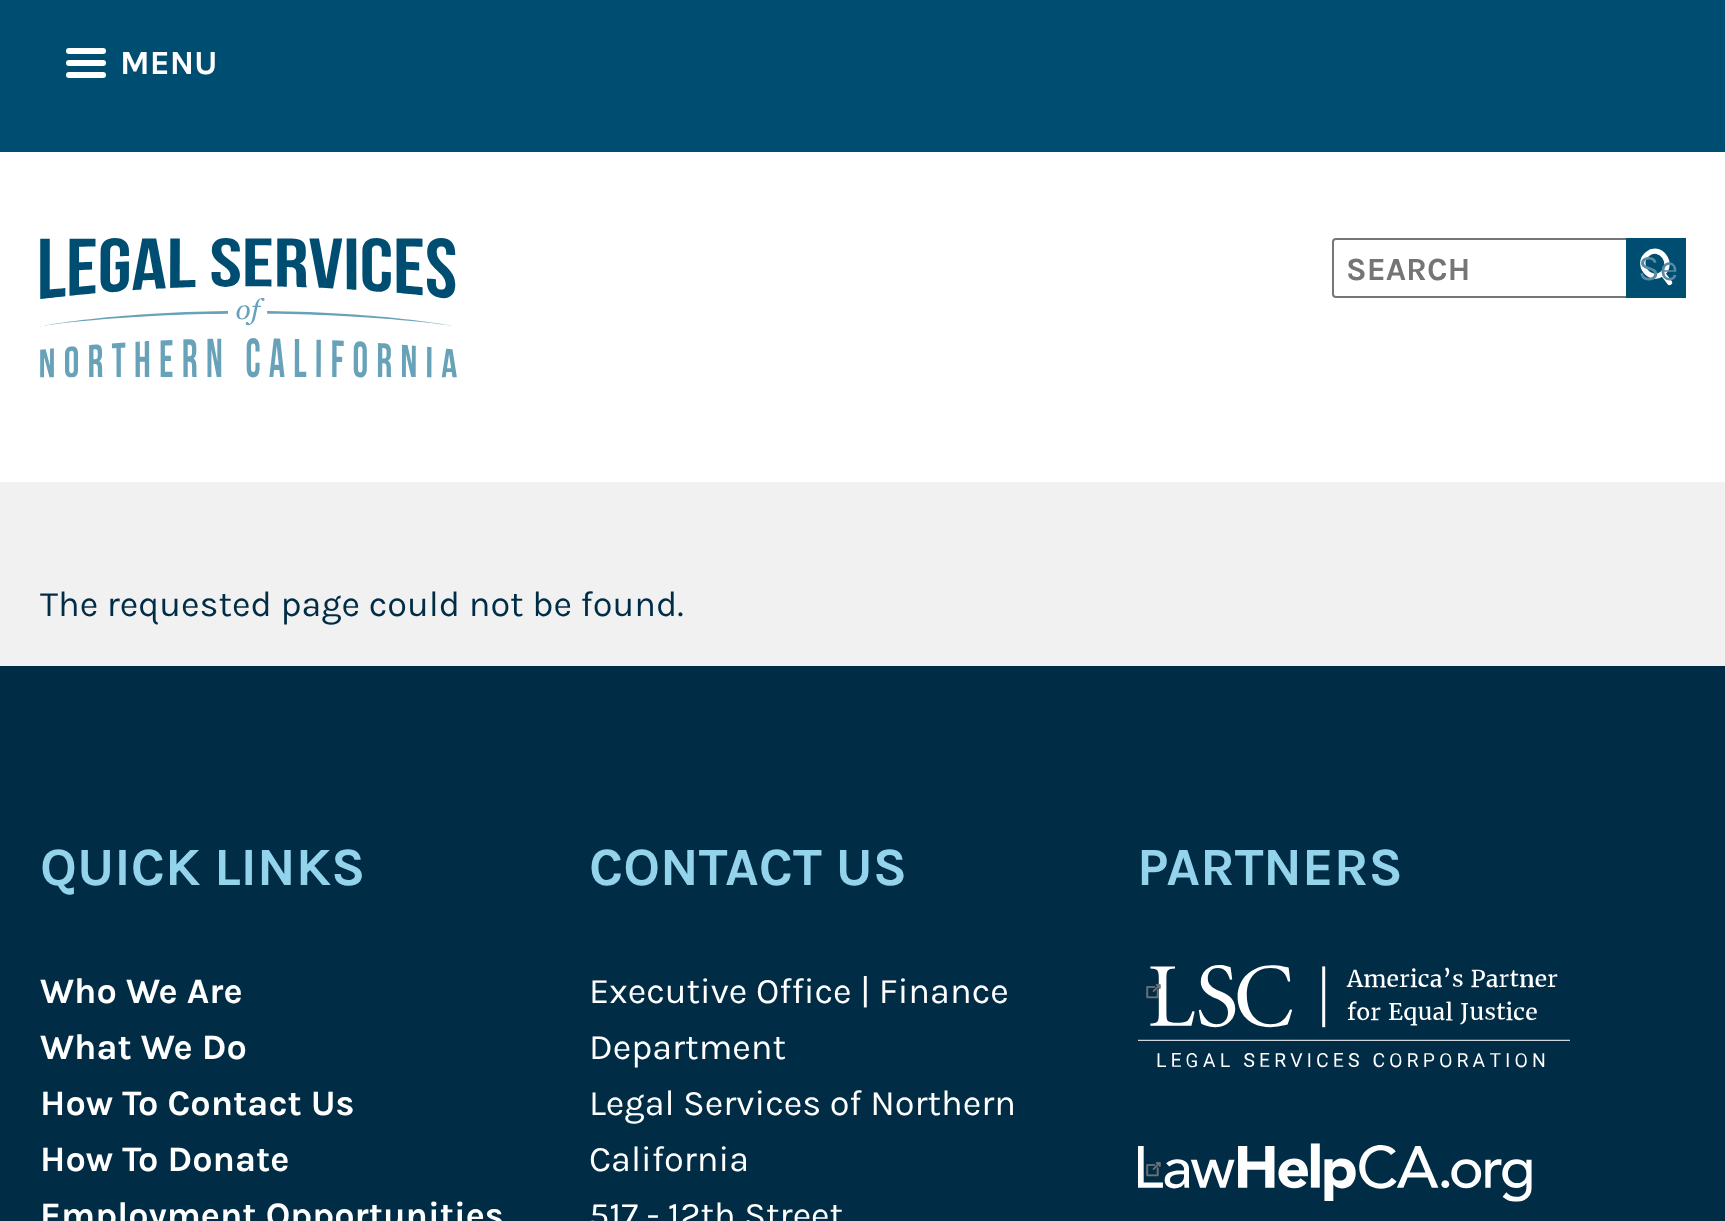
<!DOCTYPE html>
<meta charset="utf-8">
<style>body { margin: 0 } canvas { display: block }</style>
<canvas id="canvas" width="1725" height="1221"></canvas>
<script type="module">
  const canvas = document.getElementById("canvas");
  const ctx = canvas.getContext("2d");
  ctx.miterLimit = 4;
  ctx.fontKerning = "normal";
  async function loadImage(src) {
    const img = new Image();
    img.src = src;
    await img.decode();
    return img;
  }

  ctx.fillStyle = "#ffffff";
  ctx.fillRect(0, 0, 1725, 1221);
  ctx.fillStyle = "#004d72";
  ctx.fillRect(0, 0, 1725, 152);
  ctx.fillStyle = "#ffffff";
  ctx.beginPath();
  ctx.roundRect(66, 48, 40, 6, 3);
  ctx.fill();
  ctx.font = "bold 34px Karla";
  ctx.fillText("MENU", 120, 74);
  ctx.beginPath();
  ctx.roundRect(66, 60, 40, 6, 3);
  ctx.fill();
  ctx.beginPath();
  ctx.roundRect(66, 72, 40, 6, 3);
  ctx.fill();
  ctx.drawImage(await loadImage("img1.png"), 40, 238, 417, 140);
  ctx.beginPath();
  ctx.roundRect(1333, 239, 298, 58, 3);
  ctx.strokeStyle = "#767676";
  ctx.lineWidth = 2;
  ctx.stroke();
  ctx.font = "bold 32.5px Karla";
  ctx.fillStyle = "#757575";
  ctx.fillText("SEARCH", 1346, 280);
  ctx.fillStyle = "#004d72";
  ctx.fillRect(1626, 238, 60, 60);
  ctx.beginPath();
  ctx.moveTo(1662.5, 273.5);
  ctx.bezierCurveTo(1650, 283.5, 1635, 264, 1647.5, 254);
  ctx.bezierCurveTo(1660, 244, 1674.5, 263.5, 1662.5, 273.5);
  ctx.closePath();
  ctx.moveTo(1669.5, 282.5);
  ctx.lineTo(1663, 274);
  ctx.strokeStyle = "#ffffff";
  ctx.lineWidth = 5.3;
  ctx.lineCap = "round";
  ctx.lineJoin = "round";
  ctx.stroke();
  ctx.font = "36px Karla";
  ctx.fillStyle = "#588aa3";
  ctx.fillText("Se", 1638, 280);
  ctx.fillStyle = "#f1f1f1";
  ctx.fillRect(0, 482, 1725, 184);
  ctx.fillStyle = "#002c45";
  ctx.fillText("The requested page could not be found.", 40, 616);
  ctx.fillRect(0, 666, 1725, 555);
  ctx.font = "bold 54px Karla";
  ctx.fillStyle = "#93d3ec";
  ctx.fillText("QUICK LINKS", 40, 885);
  ctx.font = "bold 36px Karla";
  ctx.fillStyle = "#ffffff";
  ctx.fillText("Who We Are", 40, 1003);
  ctx.fillText("What We Do", 40, 1059);
  ctx.fillText("How To Contact Us", 40, 1115);
  ctx.fillText("How To Donate", 40, 1171);
  ctx.fillText("Employment Opportunities", 40, 1227);
  ctx.font = "bold 54px Karla";
  ctx.fillStyle = "#93d3ec";
  ctx.fillText("CONTACT US", 589, 885);
  ctx.font = "36px Karla";
  ctx.fillStyle = "#ffffff";
  ctx.fillText("Executive Office | Finance", 589, 1003);
  ctx.fillText("Department", 589, 1059);
  ctx.fillText("Legal Services of Northern", 589, 1115);
  ctx.fillText("California", 589, 1171);
  ctx.fillText("517 - 12th Street", 589, 1227);
  ctx.font = "bold 54px Karla";
  ctx.fillStyle = "#93d3ec";
  ctx.fillText("PARTNERS", 1137, 885);
  ctx.drawImage(await loadImage("img2.png"), 1138, 965, 432, 103);
  ctx.drawImage(await loadImage("img3.png"), 1146, 983, 15, 16);
  ctx.drawImage(await loadImage("img4.png"), 1138, 1143, 394, 59);
  ctx.drawImage(await loadImage("img5.png"), 1146, 1161, 15, 16);
</script>
